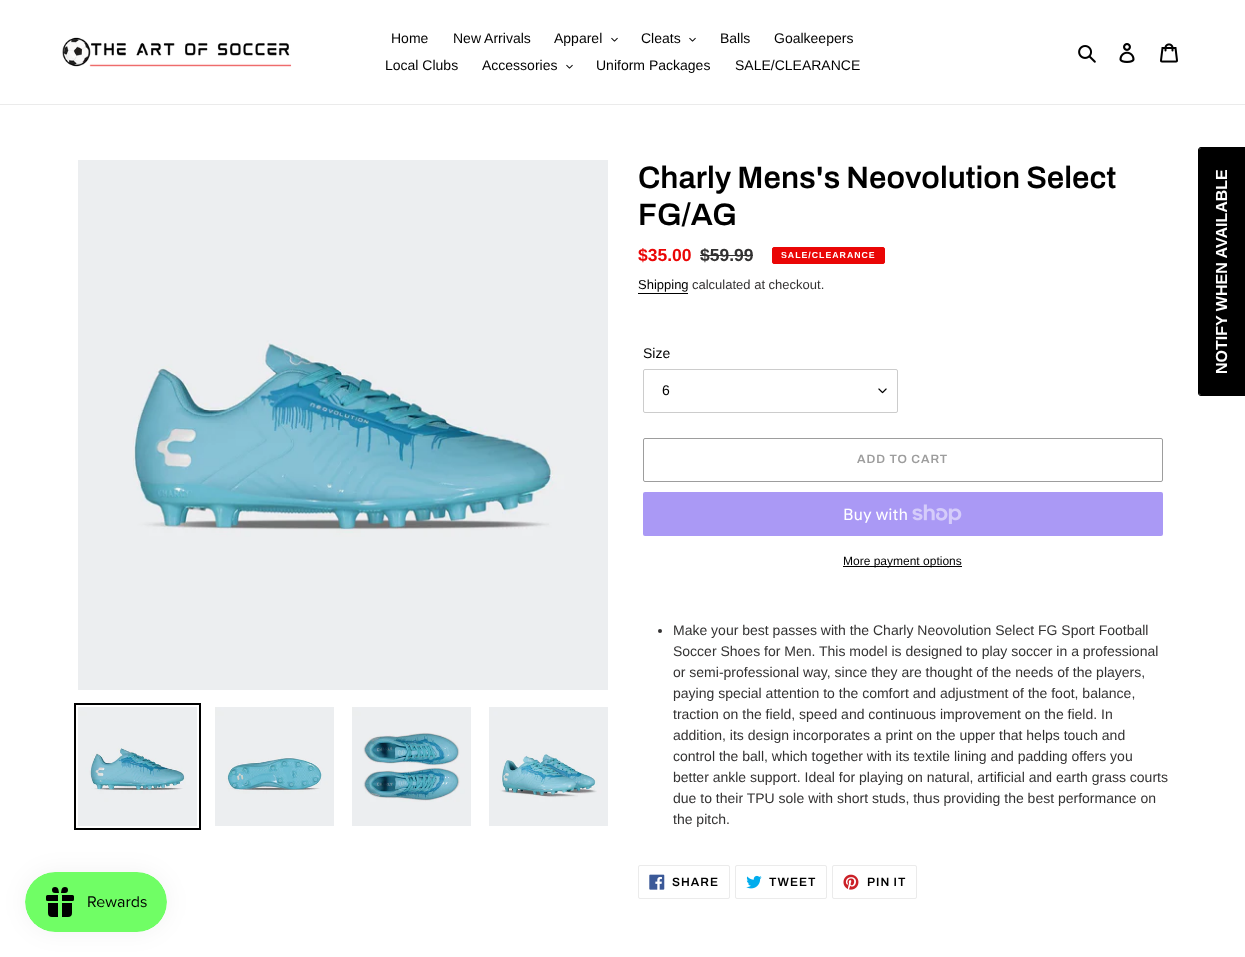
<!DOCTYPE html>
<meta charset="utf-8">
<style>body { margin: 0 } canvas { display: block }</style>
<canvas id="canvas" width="1245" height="957"></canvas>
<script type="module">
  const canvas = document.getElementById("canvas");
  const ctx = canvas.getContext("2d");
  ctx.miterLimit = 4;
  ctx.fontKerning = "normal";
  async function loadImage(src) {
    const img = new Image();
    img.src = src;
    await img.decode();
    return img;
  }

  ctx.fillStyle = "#ffffff";
  ctx.fillRect(0, 0, 1245, 957);
  ctx.fillStyle = "#ebebeb";
  ctx.fillRect(0, 104, 1245, 1);
  ctx.drawImage(await loadImage("img1.png"), 62, 37, 230, 30);
  ctx.font = "14px Arimo";
  ctx.fillStyle = "#000000";
  ctx.fillText("Home", 391, 43);
  ctx.fillText("New Arrivals", 453, 43);
  ctx.fillText("Apparel", 554, 43);
  ctx.drawImage(await loadImage("img2.png"), 611, 37, 7, 5);
  ctx.fillText("Cleats", 641, 43);
  ctx.drawImage(await loadImage("img2.png"), 689, 37, 7, 5);
  ctx.fillText("Balls", 720, 43);
  ctx.fillText("Goalkeepers", 774, 43);
  ctx.fillText("Local Clubs", 385, 70);
  ctx.fillText("Accessories", 482, 70);
  ctx.drawImage(await loadImage("img2.png"), 566, 64, 7, 5);
  ctx.fillText("Uniform Packages", 596, 70);
  ctx.fillText("SALE/CLEARANCE", 735, 70);
  ctx.drawImage(await loadImage("img3.png"), 1078, 45, 18, 18);
  ctx.drawImage(await loadImage("img4.png"), 1119, 43, 16, 20);
  ctx.drawImage(await loadImage("img5.png"), 1160, 43, 18, 20);
  ctx.drawImage(await loadImage("img6.png"), 78, 160, 530, 530);
  ctx.strokeStyle = "#000000";
  ctx.lineWidth = 2;
  ctx.strokeRect(75, 704, 125, 125);
  ctx.drawImage(await loadImage("img7.png"), 78, 707, 119, 119);
  ctx.drawImage(await loadImage("img8.png"), 215, 707, 119, 119);
  ctx.drawImage(await loadImage("img9.png"), 352, 707, 119, 119);
  ctx.drawImage(await loadImage("img10.png"), 489, 707, 119, 119);
  ctx.font = "600 31px Archivo";
  ctx.fillText("Charly Mens's Neovolution Select", 638, 188);
  ctx.fillText("FG/AG", 638, 225);
  ctx.font = "bold 17.5px Arimo";
  ctx.fillStyle = "#ea0606";
  ctx.fillText("$35.00", 638, 261);
  ctx.fillStyle = "#333232";
  ctx.fillText("$59.99", 700, 261);
  ctx.fillRect(700, 255, 53, 1);
  ctx.fillStyle = "#ea0606";
  ctx.beginPath();
  ctx.roundRect(772.5, 247.5, 112, 16, 1.5);
  ctx.fill();
  ctx.strokeStyle = "#ea0606";
  ctx.lineWidth = 1;
  ctx.stroke();
  ctx.letterSpacing = "1px";
  ctx.font = "bold 8.75px Arimo";
  ctx.fillStyle = "#ffffff";
  ctx.fillText("SALE/CLEARANCE", 781, 258);
  ctx.letterSpacing = "0px";
  ctx.font = "13px Arimo";
  ctx.fillStyle = "#000000";
  ctx.fillText("Shipping", 638, 289);
  ctx.fillRect(638, 293, 50, 1);
  ctx.fillStyle = "#333232";
  ctx.fillText("calculated at checkout.", 692, 289);
  ctx.font = "14px Arimo";
  ctx.fillStyle = "#000000";
  ctx.fillText("Size", 643, 358);
  ctx.drawImage(await loadImage("img11.png"), 878, 388, 9, 6);
  ctx.beginPath();
  ctx.roundRect(643.5, 369.5, 254, 43, 1.5);
  ctx.strokeStyle = "#cccccc";
  ctx.stroke();
  ctx.fillText("6", 662, 395);
  ctx.beginPath();
  ctx.roundRect(643.5, 438.5, 519, 43, 1.5);
  ctx.strokeStyle = "#9d9d9d";
  ctx.stroke();
  ctx.letterSpacing = "1px";
  ctx.font = "600 12px Archivo";
  ctx.fillStyle = "#9d9d9d";
  ctx.fillText("ADD TO CART", 857, 463);
  ctx.fillStyle = "#aa99f5";
  ctx.beginPath();
  ctx.roundRect(643, 492, 520, 44, 2);
  ctx.fill();
  ctx.letterSpacing = "0px";
  ctx.font = "16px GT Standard";
  ctx.fillStyle = "#ffffff";
  ctx.fillText("Buy with", 843, 520);
  ctx.drawImage(await loadImage("img12.png"), 912, 504, 50, 20);
  ctx.fillStyle = "#000000";
  ctx.fillRect(843, 566, 119, 1);
  ctx.font = "12px Arimo";
  ctx.fillText("More payment options", 843, 565);
  ctx.fillStyle = "#333232";
  ctx.beginPath();
  ctx.arc(660, 631, 2, 0, Math.PI * 2);
  ctx.fill();
  ctx.font = "14px Arimo";
  ctx.fillText("Make your best passes with the Charly Neovolution Select FG Sport Football", 673, 635);
  ctx.fillText("Soccer Shoes for Men. This model is designed to play soccer in a professional", 673, 656);
  ctx.fillText("or semi-professional way, since they are thought of the needs of the players,", 673, 677);
  ctx.fillText("paying special attention to the comfort and adjustment of the foot, balance,", 673, 698);
  ctx.fillText("traction on the field, speed and continuous improvement on the field. In", 673, 719);
  ctx.fillText("addition, its design incorporates a print on the upper that helps touch and", 673, 740);
  ctx.fillText("control the ball, which together with its textile lining and padding offers you", 673, 761);
  ctx.fillText("better ankle support. Ideal for playing on natural, artificial and earth grass courts", 673, 782);
  ctx.fillText("due to their TPU sole with short studs, thus providing the best performance on", 673, 803);
  ctx.fillText("the pitch.", 673, 824);
  ctx.beginPath();
  ctx.roundRect(638.5, 865.5, 91, 33, 1.5);
  ctx.strokeStyle = "#ebebeb";
  ctx.stroke();
  ctx.drawImage(await loadImage("img13.png"), 649, 874, 16, 16);
  ctx.letterSpacing = "1px";
  ctx.font = "600 12px Archivo";
  ctx.fillStyle = "#000000";
  ctx.fillText("SHARE", 672, 886);
  ctx.beginPath();
  ctx.roundRect(735.5, 865.5, 91, 33, 1.5);
  ctx.stroke();
  ctx.drawImage(await loadImage("img14.png"), 746, 875, 16, 14);
  ctx.fillText("TWEET", 769, 886);
  ctx.beginPath();
  ctx.roundRect(832.5, 865.5, 84, 33, 1.5);
  ctx.stroke();
  ctx.drawImage(await loadImage("img15.png"), 843, 874, 16, 16);
  ctx.fillText("PIN IT", 867, 886);
  ctx.beginPath();
  ctx.moveTo(1199, 393);
  ctx.lineTo(1199, 150);
  ctx.bezierCurveTo(1199, 149, 1200, 148, 1201, 148);
  ctx.lineTo(1245, 148);
  ctx.lineTo(1245, 395);
  ctx.lineTo(1201, 395);
  ctx.bezierCurveTo(1200, 395, 1199, 394, 1199, 393);
  ctx.closePath();
  ctx.fill();
  ctx.beginPath();
  ctx.moveTo(1198, 393);
  ctx.lineTo(1198, 150);
  ctx.bezierCurveTo(1198, 149, 1199, 147, 1201, 147);
  ctx.lineTo(1245, 147);
  ctx.lineTo(1245, 396);
  ctx.lineTo(1201, 396);
  ctx.bezierCurveTo(1199, 396, 1198, 394, 1198, 393);
  ctx.closePath();
  ctx.moveTo(1199, 393);
  ctx.lineTo(1199, 150);
  ctx.bezierCurveTo(1199, 149, 1200, 148, 1201, 148);
  ctx.lineTo(1245, 148);
  ctx.lineTo(1245, 395);
  ctx.lineTo(1201, 395);
  ctx.bezierCurveTo(1200, 395, 1199, 394, 1199, 393);
  ctx.closePath();
  ctx.fill("evenodd");
  ctx.letterSpacing = "0px";
  ctx.font = "bold 16px Liberation Sans";
  ctx.fillStyle = "#ffffff";
  ctx.save();
  ctx.translate(1227, 374);
  ctx.rotate(-90 * Math.PI / 180);
  ctx.fillText("NOTIFY WHEN AVAILABLE", 0, 0);
  ctx.restore();
  ctx.fillStyle = "rgba(0, 0, 0, 0.05)";
  ctx.filter = "blur(12.5px)";
  ctx.beginPath();
  ctx.roundRect(25, 872, 142, 60, 30);
  ctx.fill();
  ctx.filter = "none";
  ctx.drawImage(await loadImage("img16.png"), 25, 872, 142, 60);
</script>
